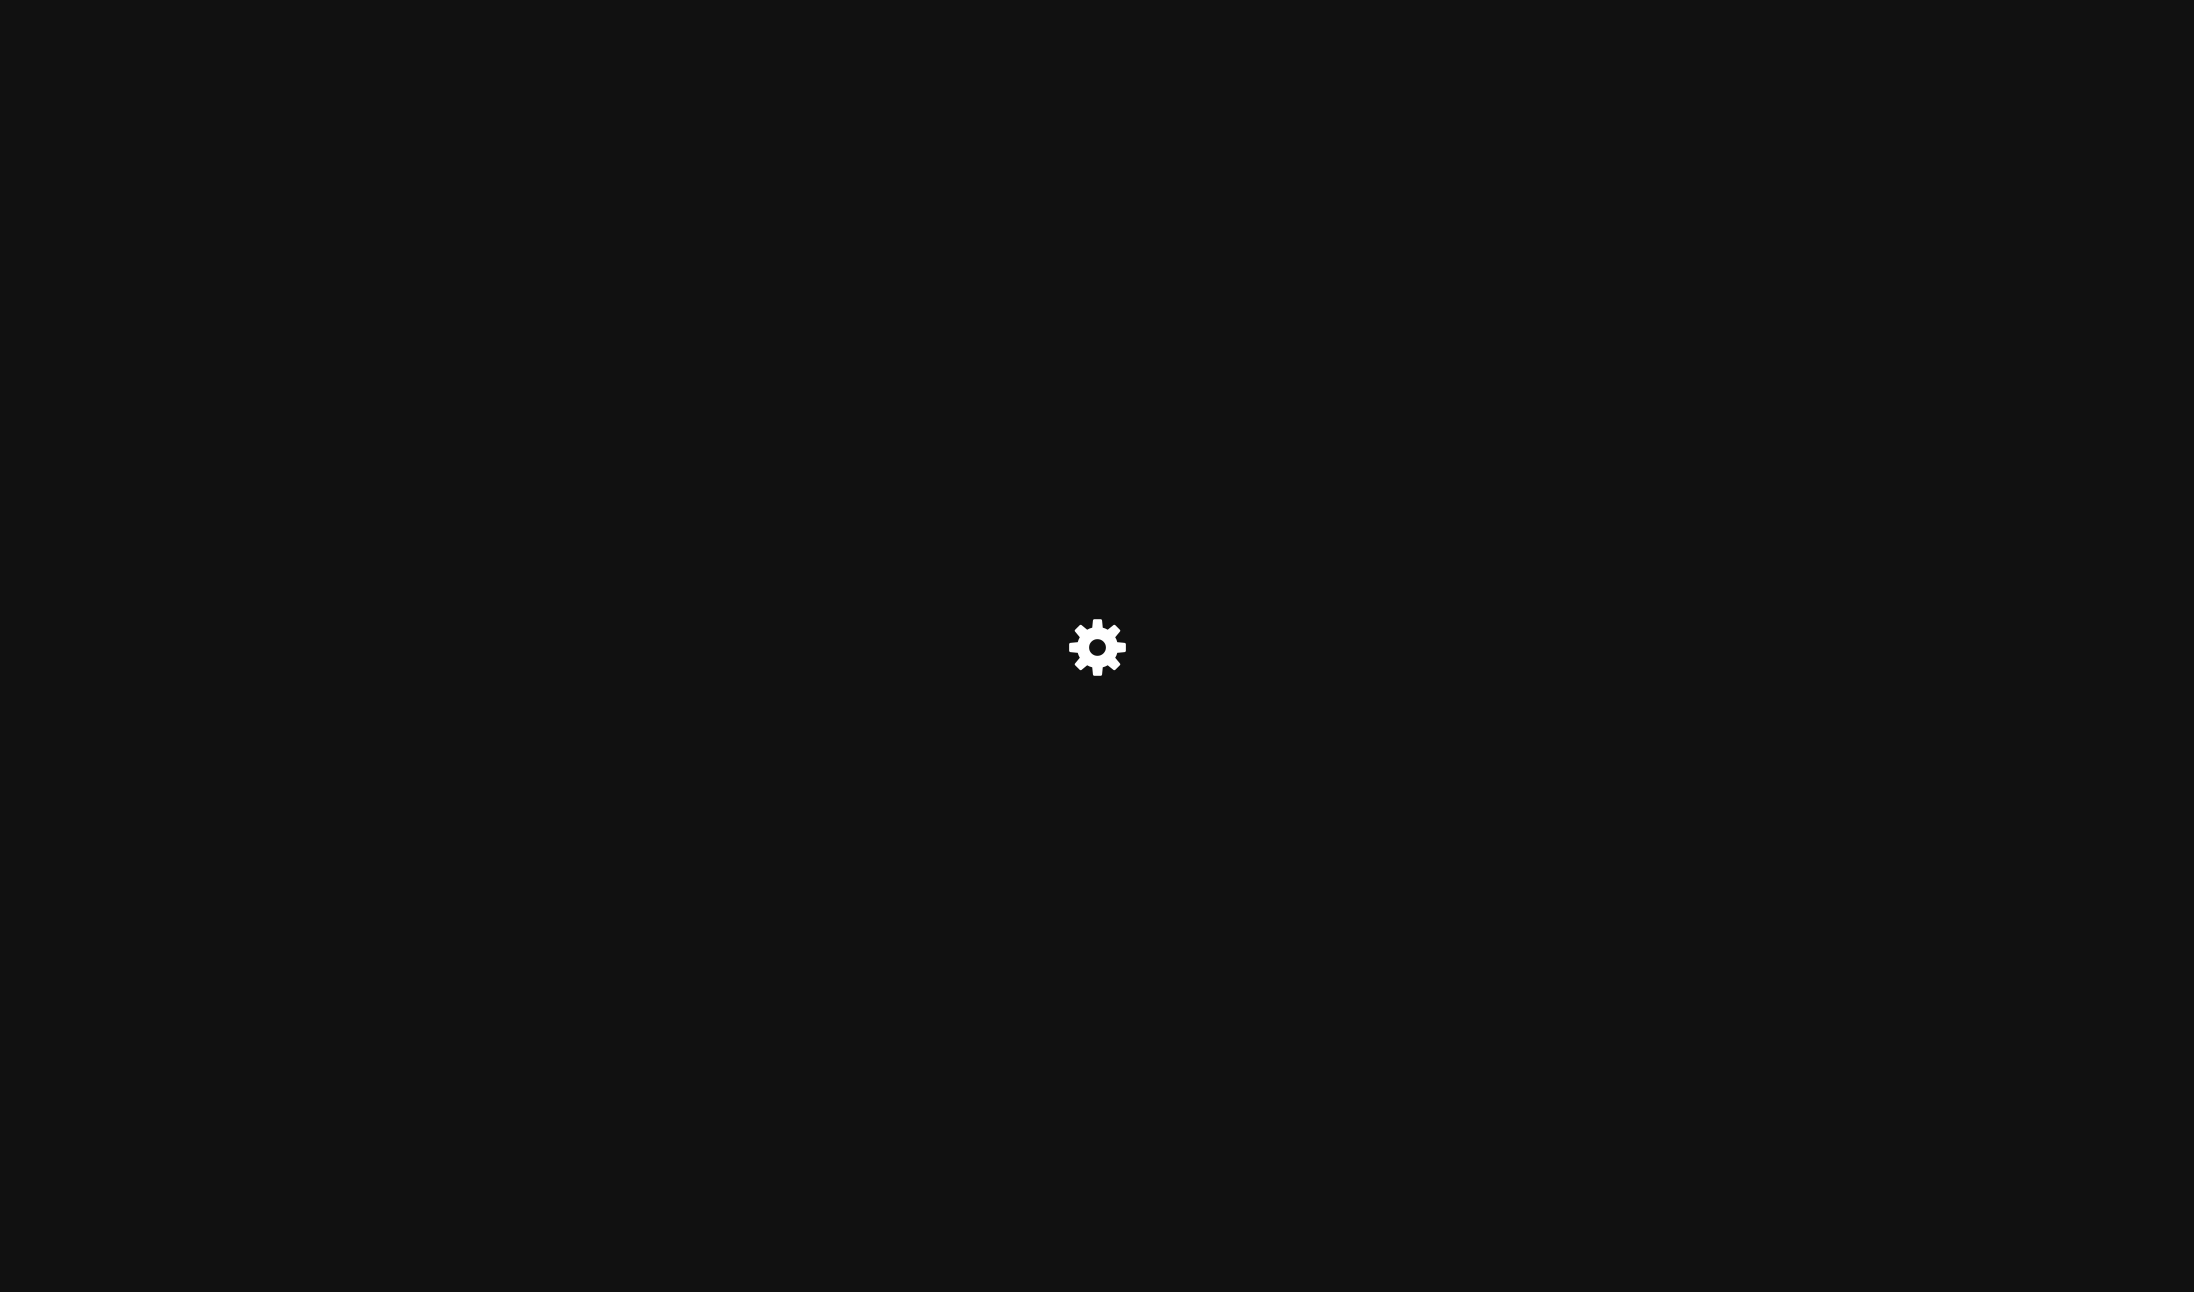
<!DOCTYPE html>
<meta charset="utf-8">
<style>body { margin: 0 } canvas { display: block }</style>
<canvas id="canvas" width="2194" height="1292"></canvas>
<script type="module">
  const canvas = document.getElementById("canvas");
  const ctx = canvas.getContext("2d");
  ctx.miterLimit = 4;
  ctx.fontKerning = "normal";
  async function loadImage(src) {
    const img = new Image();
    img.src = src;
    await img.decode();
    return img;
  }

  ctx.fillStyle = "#111111";
  ctx.fillRect(0, 0, 2194, 1292);
  ctx.drawImage(await loadImage("img1.png"), 1069, 619, 57, 57);
</script>
